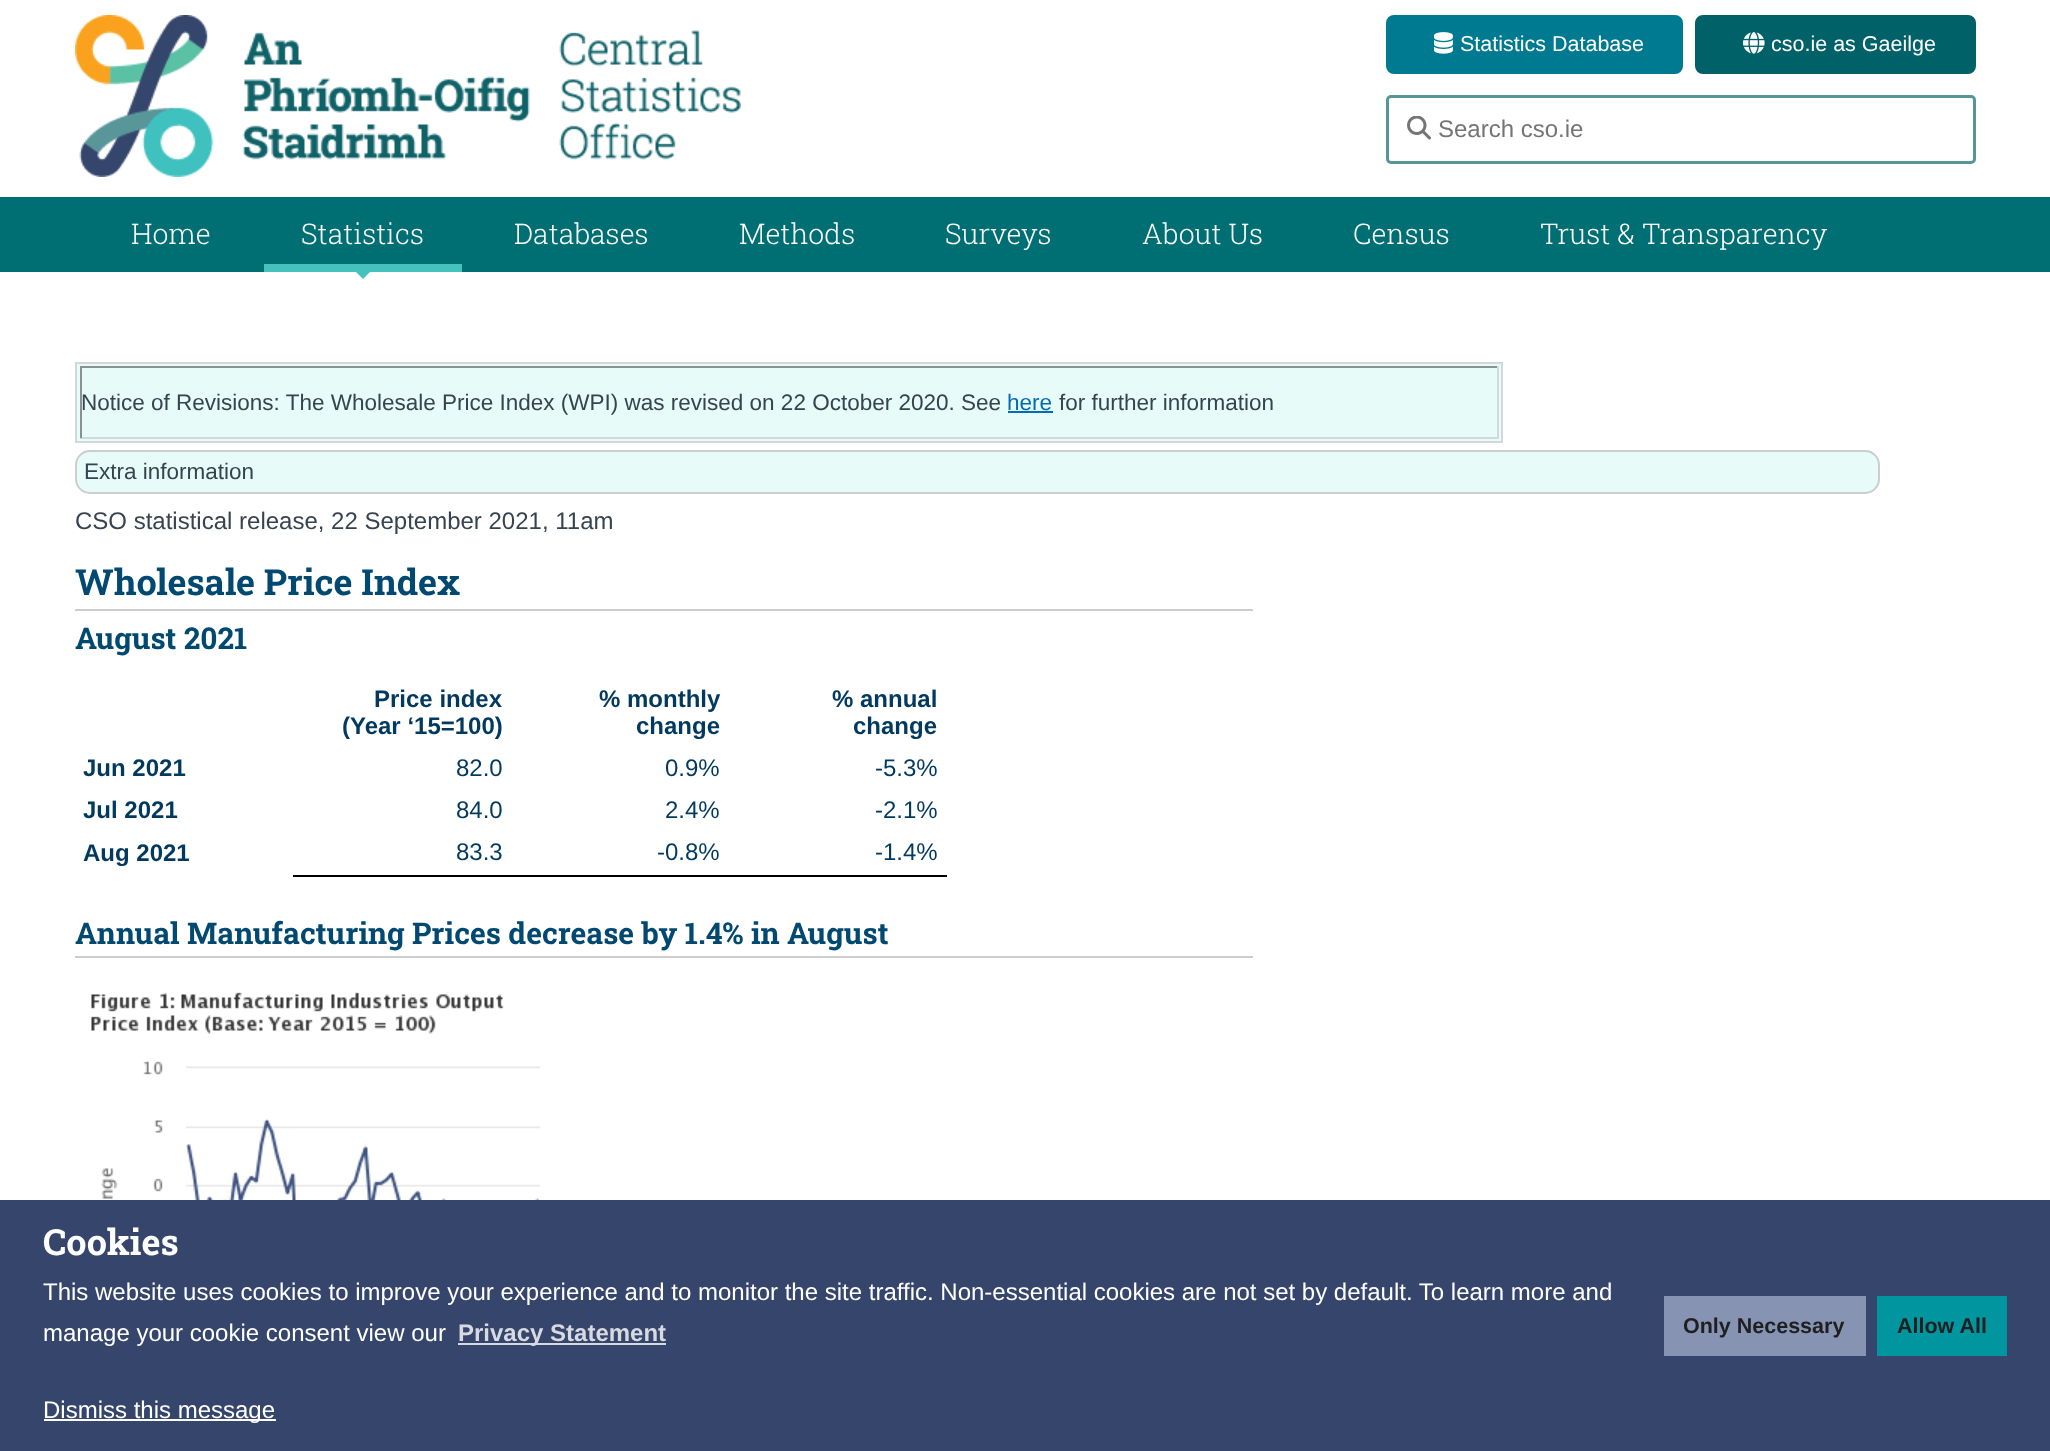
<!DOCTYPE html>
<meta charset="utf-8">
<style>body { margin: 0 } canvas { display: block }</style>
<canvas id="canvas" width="2050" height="1451"></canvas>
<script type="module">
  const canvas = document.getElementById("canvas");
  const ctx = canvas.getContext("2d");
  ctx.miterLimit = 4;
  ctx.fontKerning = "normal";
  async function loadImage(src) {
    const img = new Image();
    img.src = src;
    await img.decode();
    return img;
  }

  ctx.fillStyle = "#ffffff";
  ctx.fillRect(0, 0, 2050, 1451);
  ctx.drawImage(await loadImage("img1.png"), 75, 15, 666, 162);
  ctx.fillStyle = "#007a90";
  ctx.beginPath();
  ctx.roundRect(1387.5, 16.5, 294, 56, 6.5);
  ctx.fill();
  ctx.strokeStyle = "#007a90";
  ctx.lineWidth = 3;
  ctx.stroke();
  ctx.drawImage(await loadImage("img2.png"), 1434, 32, 19, 22);
  ctx.font = "21.5px Liberation Sans";
  ctx.fillStyle = "#ffffff";
  ctx.fillText("Statistics Database", 1460, 51);
  ctx.fillStyle = "#006168";
  ctx.beginPath();
  ctx.roundRect(1696.5, 16.5, 278, 56, 6.5);
  ctx.fill();
  ctx.strokeStyle = "#006168";
  ctx.stroke();
  ctx.drawImage(await loadImage("img3.png"), 1743, 32, 22, 22);
  ctx.fillStyle = "#ffffff";
  ctx.fillText("cso.ie as Gaeilge", 1771, 51);
  ctx.beginPath();
  ctx.roundRect(1387.5, 96.5, 587, 66, 3.5);
  ctx.strokeStyle = "#579599";
  ctx.stroke();
  ctx.drawImage(await loadImage("img4.png"), 1407, 116, 24, 24);
  ctx.font = "24px Liberation Sans";
  ctx.fillStyle = "#757575";
  ctx.fillText("Search cso.ie", 1438, 137);
  ctx.fillStyle = "#006f74";
  ctx.fillRect(0, 197, 2050, 75);
  ctx.font = "300 28.5px Roboto Slab";
  ctx.fillStyle = "#ffffff";
  ctx.fillText("Home", 131, 244);
  ctx.fillStyle = "#45c1c0";
  ctx.fillRect(264, 264, 198, 8);
  ctx.fillStyle = "#ffffff";
  ctx.fillText("Statistics", 301, 244);
  ctx.fillStyle = "#45c1c0";
  ctx.beginPath();
  ctx.moveTo(352.5, 268.5);
  ctx.lineTo(373.5, 268.5);
  ctx.lineTo(363, 279);
  ctx.closePath();
  ctx.fill();
  ctx.fillStyle = "#ffffff";
  ctx.fillText("Databases", 514, 244);
  ctx.fillText("Methods", 739, 244);
  ctx.fillText("Surveys", 945, 244);
  ctx.fillText("About Us", 1142, 244);
  ctx.fillText("Census", 1353, 244);
  ctx.fillText("Trust & Transparency", 1540, 244);
  ctx.fillStyle = "#e7fbf8";
  ctx.beginPath();
  ctx.rect(76, 363, 1426, 79);
  ctx.fill();
  ctx.strokeStyle = "#d1d9da";
  ctx.lineWidth = 2;
  ctx.stroke();
  ctx.fillStyle = "#8b9191";
  ctx.fillRect(80, 366, 1419, 2);
  ctx.fillStyle = "#d1d9da";
  ctx.fillRect(1497, 366, 2, 72);
  ctx.fillRect(80, 437, 1419, 2);
  ctx.fillStyle = "#8b9191";
  ctx.fillRect(80, 366, 2, 72);
  ctx.font = "22.5px Liberation Sans";
  ctx.fillStyle = "#384350";
  ctx.fillText("Notice of Revisions: The Wholesale Price Index (WPI) was revised on 22 October 2020. See", 81, 410);
  ctx.fillStyle = "#006bb6";
  ctx.fillText("here", 1007, 410);
  ctx.fillRect(1008, 411, 45, 2);
  ctx.fillStyle = "#384350";
  ctx.fillText("for further information", 1059, 410);
  ctx.fillStyle = "#e7fbf8";
  ctx.beginPath();
  ctx.roundRect(76, 451, 1803, 42, 14);
  ctx.fill();
  ctx.strokeStyle = "#cccdcd";
  ctx.stroke();
  ctx.fillStyle = "#384350";
  ctx.fillText("Extra information", 84, 479);
  ctx.font = "24px Liberation Sans";
  ctx.fillText("CSO statistical release, 22 September 2021, 11am", 75, 529);
  ctx.fillStyle = "#cccdcd";
  ctx.fillRect(75, 609, 1178, 2);
  ctx.font = "bold 36px Roboto Slab";
  ctx.fillStyle = "#024972";
  ctx.fillText("Wholesale Price Index", 75, 595);
  ctx.font = "bold 30px Roboto Slab";
  ctx.fillText("August 2021", 75, 649);
  ctx.font = "bold 24px Liberation Sans";
  ctx.fillStyle = "#02395f";
  ctx.fillText("Price index", 374, 707);
  ctx.fillText("(Year ‘15=100)", 342, 734);
  ctx.fillText("% monthly", 599, 707);
  ctx.fillText("change", 636, 734);
  ctx.fillText("% annual", 832, 707);
  ctx.fillText("change", 853, 734);
  ctx.fillText("Jun 2021", 83, 776);
  ctx.font = "24px Liberation Sans";
  ctx.fillText("82.0", 456, 776);
  ctx.fillText("0.9%", 665, 776);
  ctx.fillText("-5.3%", 875, 776);
  ctx.font = "bold 24px Liberation Sans";
  ctx.fillText("Jul 2021", 83, 818);
  ctx.font = "24px Liberation Sans";
  ctx.fillText("84.0", 456, 818);
  ctx.fillText("2.4%", 665, 818);
  ctx.fillText("-2.1%", 875, 818);
  ctx.font = "bold 24px Liberation Sans";
  ctx.fillText("Aug 2021", 83, 861);
  ctx.font = "24px Liberation Sans";
  ctx.fillText("83.3", 456, 860);
  ctx.fillText("-0.8%", 657, 860);
  ctx.fillStyle = "#000000";
  ctx.fillRect(293, 875, 654, 2);
  ctx.fillStyle = "#02395f";
  ctx.fillText("-1.4%", 875, 860);
  ctx.fillStyle = "#cccdcd";
  ctx.fillRect(75, 956, 1178, 2);
  ctx.font = "bold 30px Roboto Slab";
  ctx.fillStyle = "#024972";
  ctx.fillText("Annual Manufacturing Prices decrease by 1.4% in August", 75, 944);
  ctx.drawImage(await loadImage("img5.png"), 91, 992, 450, 208);
  ctx.fillStyle = "#35456b";
  ctx.fillRect(0, 1200, 2050, 251);
  ctx.font = "bold 36px Roboto Slab";
  ctx.fillStyle = "#ffffff";
  ctx.fillText("Cookies", 43, 1255);
  ctx.font = "24px Liberation Sans";
  ctx.fillText("This website uses cookies to improve your experience and to monitor the site traffic. Non-essential cookies are not set by default. To learn more and", 43, 1300);
  ctx.fillText("manage your cookie consent view our", 43, 1341);
  ctx.fillStyle = "#d7dae1";
  ctx.fillRect(458, 1343, 208, 2);
  ctx.font = "bold 24px Liberation Sans";
  ctx.fillText("Privacy Statement", 458, 1341);
  ctx.fillStyle = "#ffffff";
  ctx.fillRect(44, 1419, 232, 2);
  ctx.font = "24px Liberation Sans";
  ctx.fillText("Dismiss this message", 43, 1418);
  ctx.fillStyle = "#8693b3";
  ctx.fillRect(1664, 1296, 202, 60);
  ctx.font = "bold 21.5px Liberation Sans";
  ctx.fillStyle = "#1f1f1f";
  ctx.fillText("Only Necessary", 1683, 1333);
  ctx.fillStyle = "#00959f";
  ctx.fillRect(1877, 1296, 130, 60);
  ctx.fillStyle = "#1f1f1f";
  ctx.fillText("Allow All", 1897, 1333);
</script>
